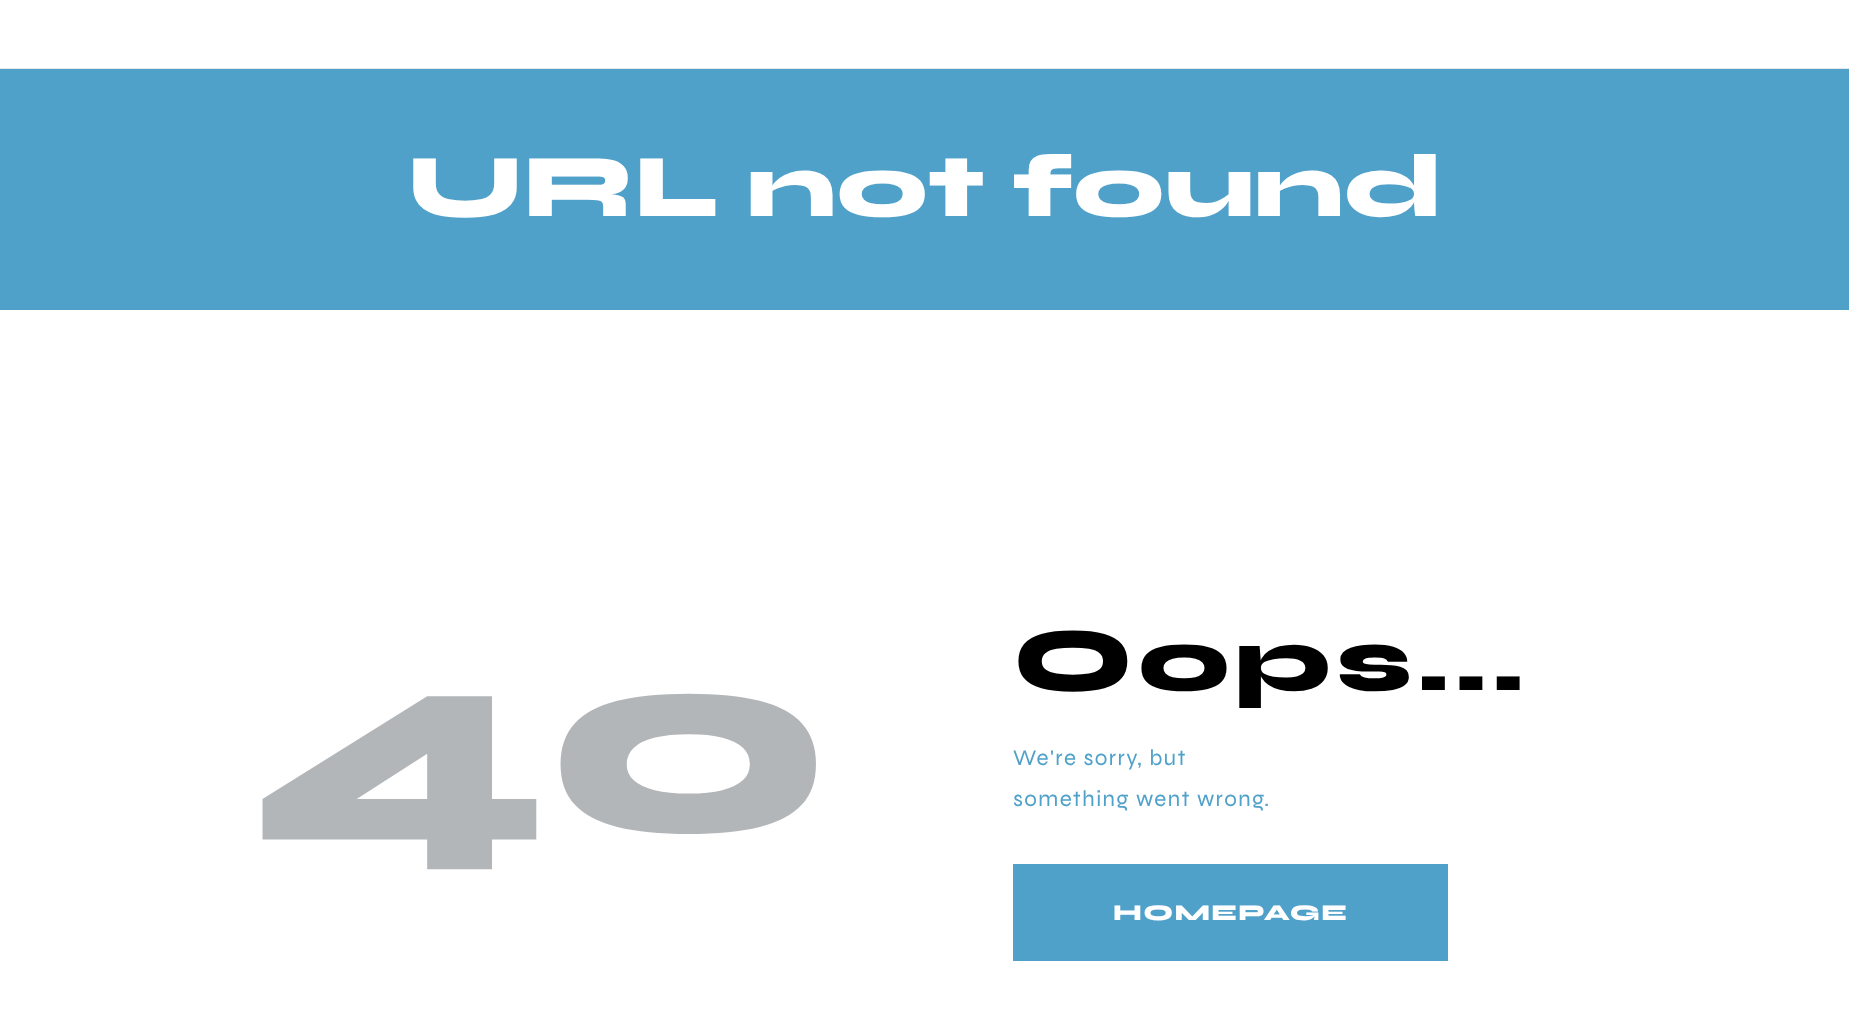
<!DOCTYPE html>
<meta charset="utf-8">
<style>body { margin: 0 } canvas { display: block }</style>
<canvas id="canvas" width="1849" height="1035"></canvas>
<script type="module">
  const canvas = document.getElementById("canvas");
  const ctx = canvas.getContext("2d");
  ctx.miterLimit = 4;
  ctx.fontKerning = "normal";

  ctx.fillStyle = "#ffffff";
  ctx.fillRect(0, 0, 1849, 1035);
  ctx.fillStyle = "#e5e8eb";
  ctx.fillRect(0, 68, 1849, 1);
  ctx.fillStyle = "#4fa1ca";
  ctx.fillRect(0, 69, 1849, 241);
  ctx.font = "800 90px Syne";
  ctx.fillStyle = "#ffffff";
  ctx.fillText("URL not found", 407, 216);
  ctx.font = "800 270px Syne";
  ctx.fillStyle = "#b3b6b8";
  ctx.fillText("40", 249, 830);
  ctx.letterSpacing = "5.5px";
  ctx.font = "800 90px Syne";
  ctx.fillStyle = "#000000";
  ctx.fillText("Oops...", 1013, 690);
  ctx.letterSpacing = "1.35px";
  ctx.font = "22.5px Syne";
  ctx.fillStyle = "#4fa1ca";
  ctx.fillText("We're sorry, but", 1013, 765);
  ctx.fillText("something went wrong.", 1013, 806);
  ctx.fillRect(1013, 864, 435, 97);
  ctx.font = "800 22.5px Syne";
  ctx.fillStyle = "#ffffff";
  ctx.fillText("HOMEPAGE", 1113, 920);
</script>
